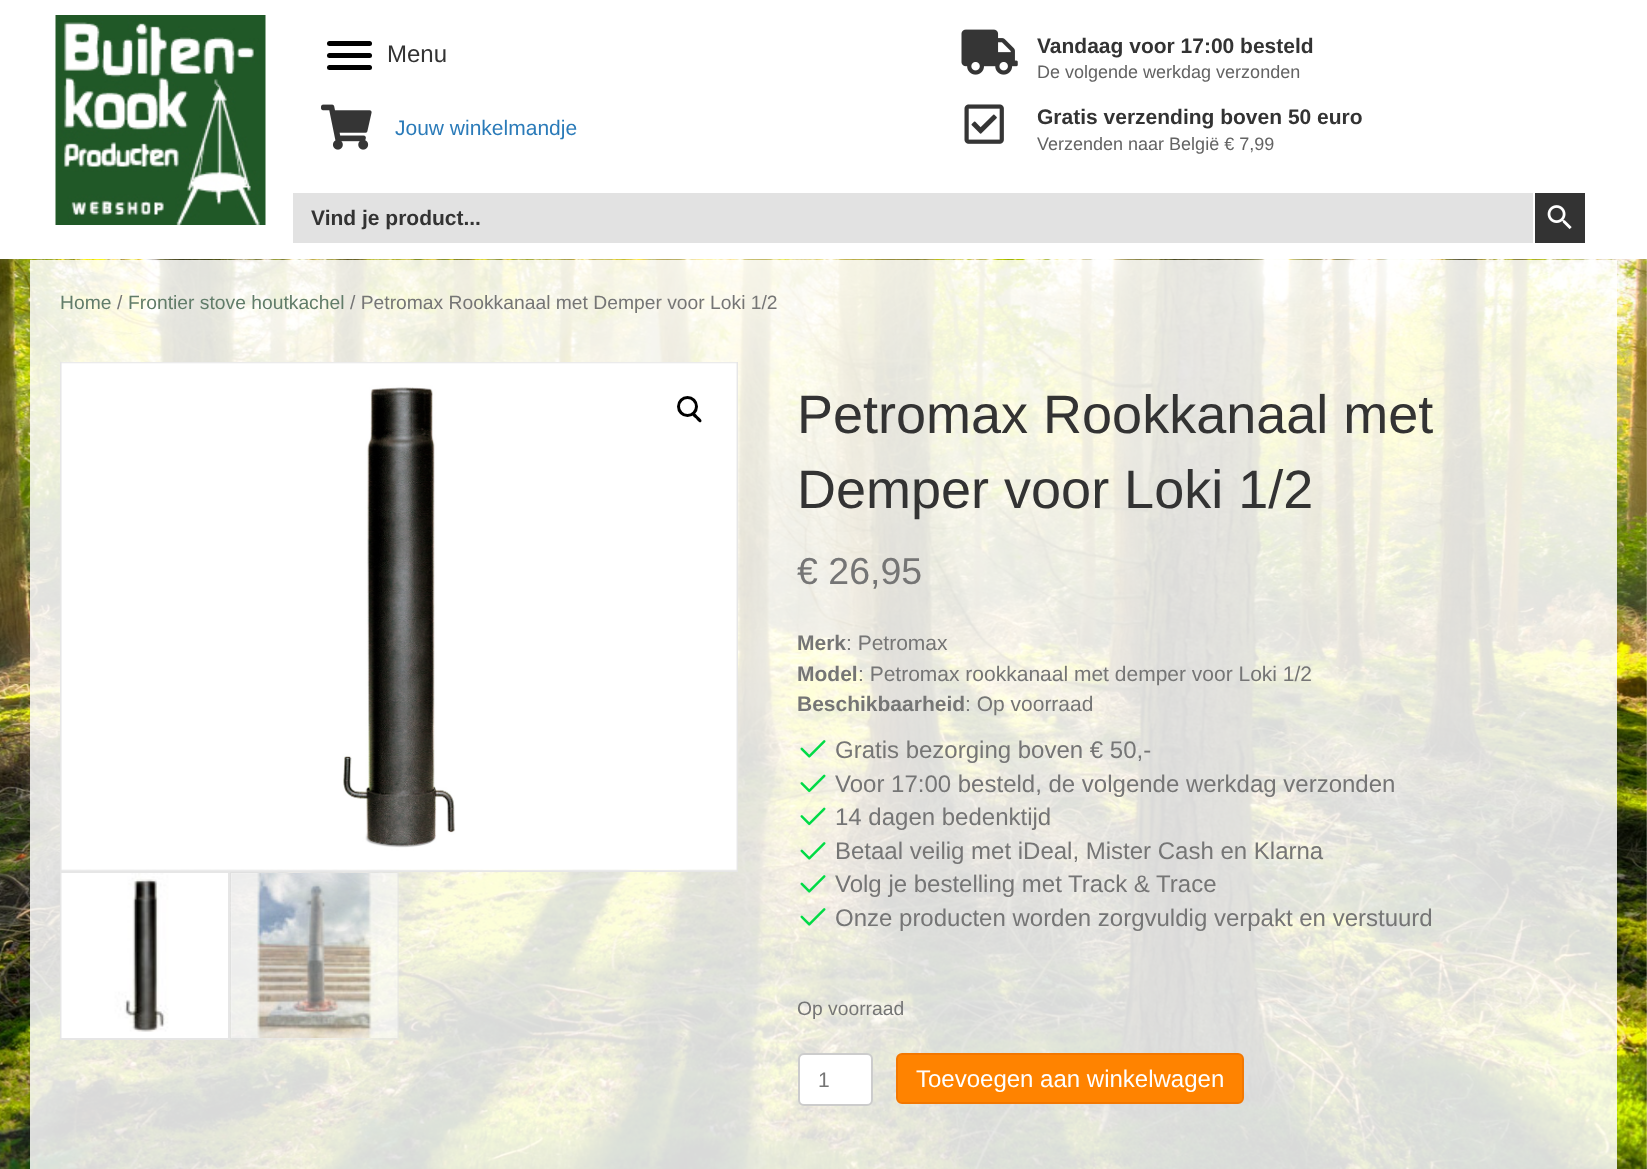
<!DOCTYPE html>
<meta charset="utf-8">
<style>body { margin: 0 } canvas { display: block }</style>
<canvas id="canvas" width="1647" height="1169"></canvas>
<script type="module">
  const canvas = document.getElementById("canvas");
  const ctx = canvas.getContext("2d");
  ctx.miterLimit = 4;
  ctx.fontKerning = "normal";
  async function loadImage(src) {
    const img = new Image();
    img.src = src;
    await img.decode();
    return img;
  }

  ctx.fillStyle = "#ffffff";
  ctx.fillRect(0, 0, 1647, 1169);
  ctx.drawImage(await loadImage("img1.png"), 55, 15, 211, 210);
  ctx.fillStyle = "#000000";
  ctx.beginPath();
  ctx.roundRect(327, 53, 45, 5, 2.5);
  ctx.fill();
  ctx.beginPath();
  ctx.roundRect(327, 41, 45, 5, 2.5);
  ctx.fill();
  ctx.beginPath();
  ctx.roundRect(327, 65, 45, 5, 2.5);
  ctx.fill();
  ctx.font = "24px Liberation Sans";
  ctx.fillStyle = "#333333";
  ctx.fillText("Menu", 387, 62);
  ctx.drawImage(await loadImage("img2.png"), 321, 104, 51, 46);
  ctx.font = "21px Liberation Sans";
  ctx.fillStyle = "#2b7bb9";
  ctx.fillText("Jouw winkelmandje", 395, 135);
  ctx.drawImage(await loadImage("img3.png"), 961, 29, 57, 46);
  ctx.font = "bold 21px Liberation Sans";
  ctx.fillStyle = "#333333";
  ctx.fillText("Vandaag voor 17:00 besteld", 1037, 53);
  ctx.font = "18px Liberation Sans";
  ctx.fillStyle = "#636363";
  ctx.fillText("De volgende werkdag verzonden", 1037, 78);
  ctx.drawImage(await loadImage("img4.png"), 964, 104, 40, 40);
  ctx.font = "bold 21px Liberation Sans";
  ctx.fillStyle = "#333333";
  ctx.fillText("Gratis verzending boven 50 euro", 1037, 124);
  ctx.font = "18px Liberation Sans";
  ctx.fillStyle = "#636363";
  ctx.fillText("Verzenden naar België € 7,99", 1037, 150);
  ctx.fillStyle = "#e2e2e2";
  ctx.fillRect(293, 193, 1240, 50);
  ctx.font = "bold 21px Liberation Sans";
  ctx.fillStyle = "#333333";
  ctx.fillText("Vind je product...", 311, 225);
  ctx.fillRect(1535, 193, 50, 50);
  ctx.drawImage(await loadImage("img5.png"), 1547, 205, 25, 25);
  ctx.drawImage(await loadImage("img6.png"), 0, 259, 1647, 910);
  ctx.fillStyle = "rgba(255, 255, 255, 0.85)";
  ctx.fillRect(30, 260, 1587, 87);
  ctx.font = "19.3px Liberation Sans";
  ctx.fillStyle = "#617c69";
  ctx.fillText("Home", 60, 309);
  ctx.fillStyle = "#757575";
  ctx.fillText("/", 117, 309);
  ctx.fillStyle = "#617c69";
  ctx.fillText("Frontier stove houtkachel", 128, 309);
  ctx.fillStyle = "#757575";
  ctx.fillText("/ Petromax Rookkanaal met Demper voor Loki 1/2", 350, 309);
  ctx.fillStyle = "rgba(255, 255, 255, 0.85)";
  ctx.fillRect(30, 347, 738, 822);
  ctx.strokeStyle = "#e6e6e6";
  ctx.lineWidth = 2;
  ctx.strokeRect(61, 363, 676, 508);
  ctx.drawImage(await loadImage("img7.png"), 61, 362, 676, 509);
  ctx.beginPath();
  ctx.arc(687.5, 406.5, 9, 0, Math.PI * 2);
  ctx.strokeStyle = "#000000";
  ctx.lineWidth = 3;
  ctx.stroke();
  ctx.fillStyle = "#000000";
  ctx.beginPath();
  ctx.moveTo(692.5, 413.5);
  ctx.bezierCurveTo(694.5, 411.5, 697, 415.5, 698, 416.5);
  ctx.bezierCurveTo(699, 417.5, 703, 420, 701, 422);
  ctx.bezierCurveTo(699.5, 423.5, 696.5, 419.5, 696, 418.5);
  ctx.bezierCurveTo(695, 418, 691, 415, 692.5, 413.5);
  ctx.closePath();
  ctx.fill();
  ctx.strokeStyle = "#e6e6e6";
  ctx.lineWidth = 2;
  ctx.strokeRect(61, 873, 168, 166);
  ctx.drawImage(await loadImage("img8.png"), 61, 873, 167, 165);
  ctx.strokeStyle = "rgba(230, 230, 230, 0.5)";
  ctx.strokeRect(231, 873, 167, 166);
  ctx.drawImage(await loadImage("img9.png"), 231, 873, 167, 165);
  ctx.fillStyle = "rgba(255, 255, 255, 0.85)";
  ctx.fillRect(768, 347, 849, 822);
  ctx.font = "54px Liberation Sans";
  ctx.fillStyle = "#333333";
  ctx.fillText("Petromax Rookkanaal met", 797, 433);
  ctx.fillText("Demper voor Loki 1/2", 797, 508);
  ctx.font = "37.5px Liberation Sans";
  ctx.fillStyle = "#757575";
  ctx.fillText("€ 26,95", 797, 584);
  ctx.font = "bold 21px Liberation Sans";
  ctx.fillText("Merk", 797, 650);
  ctx.font = "21px Liberation Sans";
  ctx.fillText(": Petromax", 846, 650);
  ctx.font = "bold 21px Liberation Sans";
  ctx.fillText("Model", 797, 681);
  ctx.font = "21px Liberation Sans";
  ctx.fillText(": Petromax rookkanaal met demper voor Loki 1/2", 858, 681);
  ctx.font = "bold 21px Liberation Sans";
  ctx.fillText("Beschikbaarheid", 797, 711);
  ctx.font = "21px Liberation Sans";
  ctx.fillText(": Op voorraad", 965, 711);
  ctx.drawImage(await loadImage("img10.png"), 800, 740, 26, 18);
  ctx.font = "24px Liberation Sans";
  ctx.fillText("Gratis bezorging boven € 50,-", 835, 758);
  ctx.drawImage(await loadImage("img11.png"), 800, 774, 26, 19);
  ctx.fillText("Voor 17:00 besteld, de volgende werkdag verzonden", 835, 792);
  ctx.drawImage(await loadImage("img12.png"), 800, 807, 26, 19);
  ctx.fillText("14 dagen bedenktijd", 835, 825);
  ctx.drawImage(await loadImage("img13.png"), 800, 842, 26, 18);
  ctx.fillText("Betaal veilig met iDeal, Mister Cash en Klarna", 835, 859);
  ctx.drawImage(await loadImage("img14.png"), 800, 875, 26, 18);
  ctx.fillText("Volg je bestelling met Track & Trace", 835, 892);
  ctx.drawImage(await loadImage("img15.png"), 800, 908, 26, 18);
  ctx.fillText("Onze producten worden zorgvuldig verpakt en verstuurd", 835, 926);
  ctx.font = "19.3px Liberation Sans";
  ctx.fillText("Op voorraad", 797, 1015);
  ctx.fillStyle = "#ffffff";
  ctx.beginPath();
  ctx.roundRect(799, 1054, 73, 51, 5);
  ctx.fill();
  ctx.strokeStyle = "#cccccc";
  ctx.stroke();
  ctx.font = "21px Liberation Sans";
  ctx.fillStyle = "#757575";
  ctx.fillText("1", 818, 1087);
  ctx.fillStyle = "#ff8300";
  ctx.beginPath();
  ctx.roundRect(897, 1054, 346, 49, 5);
  ctx.fill();
  ctx.strokeStyle = "#f37700";
  ctx.stroke();
  ctx.font = "24px Liberation Sans";
  ctx.fillStyle = "#ffffff";
  ctx.fillText("Toevoegen aan winkelwagen", 916, 1087);
</script>
